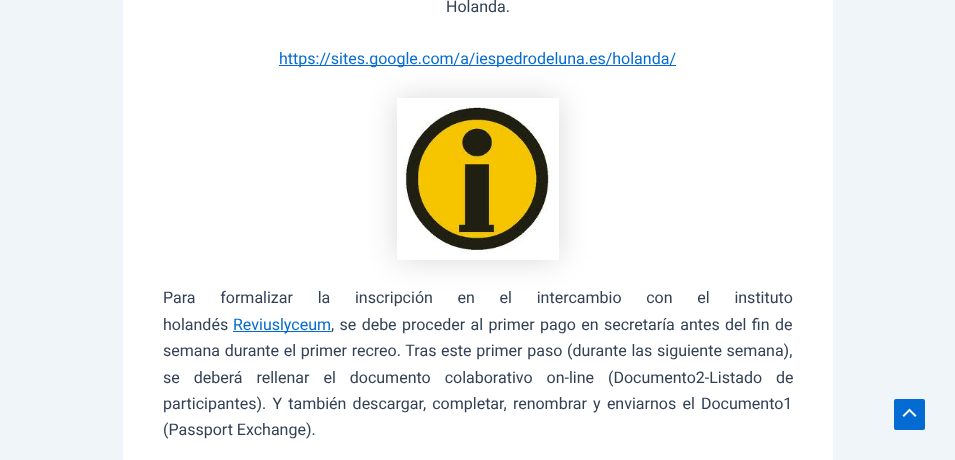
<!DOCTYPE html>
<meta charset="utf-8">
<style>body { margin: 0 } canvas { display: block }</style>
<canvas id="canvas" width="955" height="460"></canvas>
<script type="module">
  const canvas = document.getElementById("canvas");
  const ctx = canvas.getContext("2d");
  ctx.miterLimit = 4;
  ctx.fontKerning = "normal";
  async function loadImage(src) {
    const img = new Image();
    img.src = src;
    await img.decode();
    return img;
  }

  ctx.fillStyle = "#f0f5fa";
  ctx.fillRect(0, 0, 955, 460);
  ctx.fillStyle = "#ffffff";
  ctx.fillRect(123, 0, 710, 460);
  ctx.font = "16px Roboto";
  ctx.fillStyle = "#334155";
  ctx.fillText("Holanda.", 446, 12);
  ctx.save();
  ctx.beginPath();
  ctx.moveTo(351, 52);
  ctx.lineTo(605, 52);
  ctx.lineTo(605, 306);
  ctx.lineTo(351, 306);
  ctx.closePath();
  ctx.moveTo(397, 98);
  ctx.lineTo(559, 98);
  ctx.lineTo(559, 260);
  ctx.lineTo(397, 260);
  ctx.closePath();
  ctx.clip("evenodd");
  ctx.fillStyle = "rgba(0, 0, 0, 0.15)";
  ctx.filter = "blur(15px)";
  ctx.beginPath();
  ctx.rect(397, 98, 162, 162);
  ctx.fill();
  ctx.filter = "none";
  ctx.restore();
  ctx.fillStyle = "#046bd2";
  ctx.fillRect(279, 65, 397, 1);
  ctx.fillText("https://sites.google.com/a/iespedrodeluna.es/holanda/", 279, 64);
  ctx.drawImage(await loadImage("img1.png"), 403, 104, 150, 149);
  ctx.wordSpacing = "20.75px";
  ctx.fillStyle = "#334155";
  ctx.fillText("Para formalizar la inscripción en el intercambio con el instituto", 163, 303);
  ctx.wordSpacing = "0px";
  ctx.fillText("holandés", 163, 330);
  ctx.fillStyle = "#046bd2";
  ctx.fillRect(233, 331, 98, 1);
  ctx.fillText("Reviuslyceum", 233, 330);
  ctx.wordSpacing = "1.4px";
  ctx.fillStyle = "#334155";
  ctx.fillText(", se debe proceder al primer pago en secretaría antes del fin de", 331, 330);
  ctx.wordSpacing = "0.75px";
  ctx.fillText("semana durante el primer recreo. Tras este primer paso (durante las siguiente semana),", 163, 356);
  ctx.wordSpacing = "10px";
  ctx.fillText("se deberá rellenar el documento colaborativo on-line (Documento2-Listado de", 163, 383);
  ctx.wordSpacing = "2.25px";
  ctx.fillText("participantes). Y también descargar, completar, renombrar y enviarnos el Documento1", 163, 409);
  ctx.wordSpacing = "0px";
  ctx.fillText("(Passport Exchange).", 163, 435);
  ctx.fillStyle = "#046bd2";
  ctx.beginPath();
  ctx.roundRect(894, 399, 31, 31, 2);
  ctx.fill();
  ctx.drawImage(await loadImage("img2.png"), 902, 408, 15, 9);
</script>
